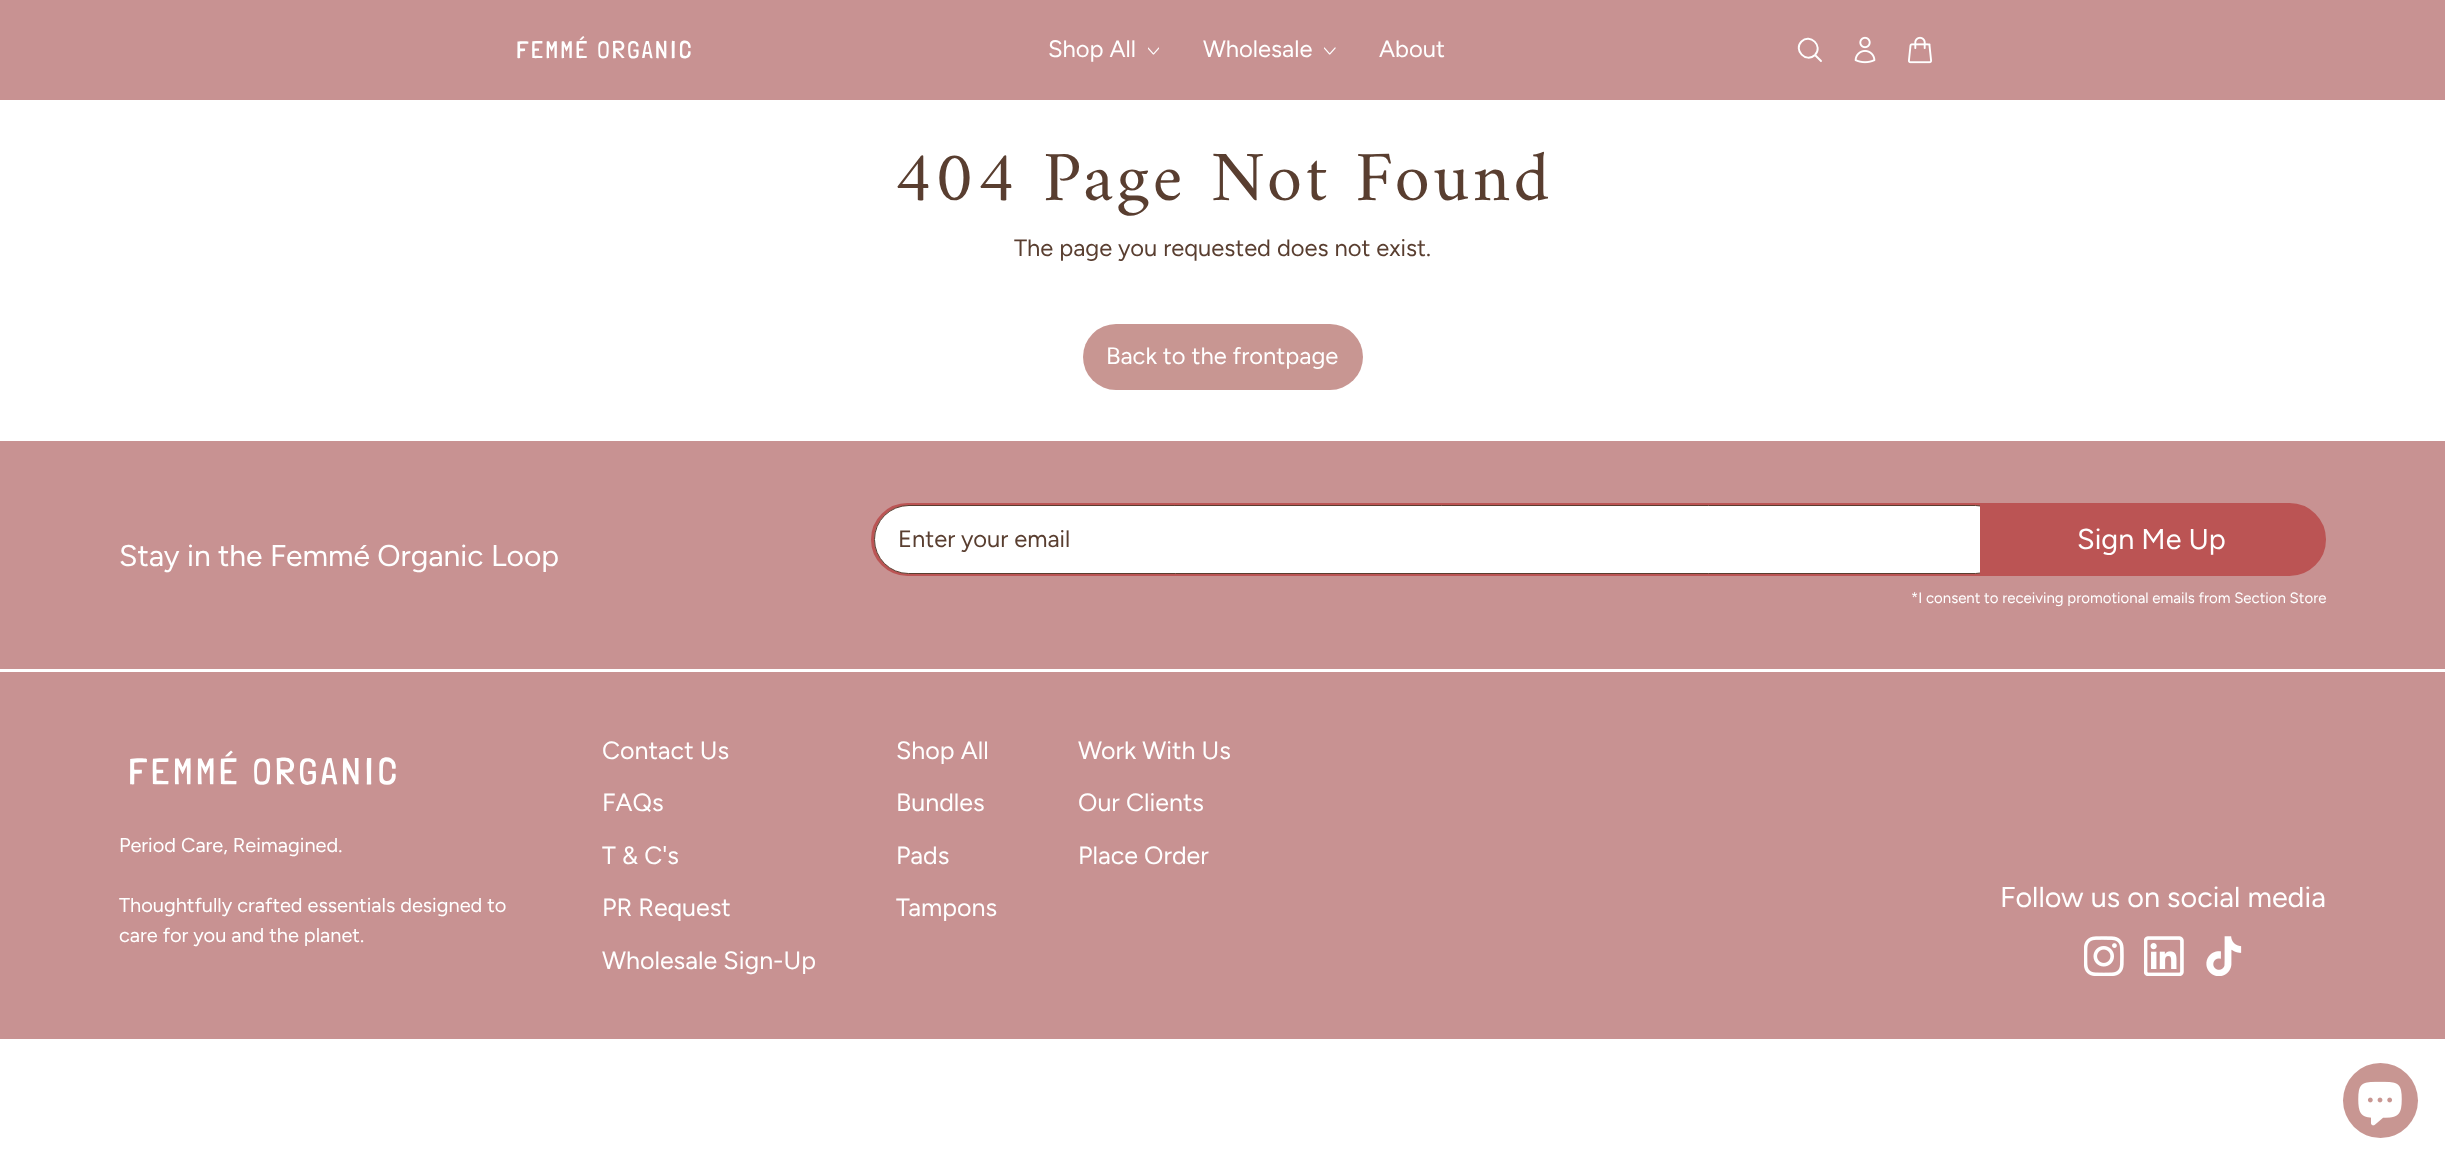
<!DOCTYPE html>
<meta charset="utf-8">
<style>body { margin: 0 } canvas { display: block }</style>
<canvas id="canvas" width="2445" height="1163"></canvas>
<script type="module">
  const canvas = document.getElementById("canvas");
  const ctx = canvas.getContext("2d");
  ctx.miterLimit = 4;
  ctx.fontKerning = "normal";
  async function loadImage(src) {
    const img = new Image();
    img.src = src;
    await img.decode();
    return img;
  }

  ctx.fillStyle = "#ffffff";
  ctx.fillRect(0, 0, 2445, 1163);
  ctx.fillStyle = "#c89292";
  ctx.fillRect(0, 0, 2445, 100);
  ctx.drawImage(await loadImage("img1.png"), 517, 36, 174, 23);
  ctx.font = "23.75px Figtree";
  ctx.fillStyle = "#ffffff";
  ctx.fillText("Shop All", 1048, 57);
  ctx.drawImage(await loadImage("img2.png"), 1148, 47, 11, 8);
  ctx.fillText("Wholesale", 1203, 57);
  ctx.drawImage(await loadImage("img3.png"), 1324, 47, 12, 8);
  ctx.fillText("About", 1379, 57);
  ctx.beginPath();
  ctx.moveTo(1821, 61);
  ctx.lineTo(1815, 55);
  ctx.moveTo(1815, 55);
  ctx.bezierCurveTo(1823.5, 46, 1810, 33, 1801.5, 41.5);
  ctx.bezierCurveTo(1793, 50, 1806, 63.5, 1815, 55);
  ctx.closePath();
  ctx.strokeStyle = "#ffffff";
  ctx.lineWidth = 1.9;
  ctx.lineCap = "round";
  ctx.lineJoin = "round";
  ctx.stroke();
  ctx.drawImage(await loadImage("img4.png"), 1854, 36, 22, 28);
  ctx.drawImage(await loadImage("img5.png"), 1908, 36, 24, 28);
  ctx.letterSpacing = "3.6px";
  ctx.font = "71.25px Amiri";
  ctx.fillStyle = "#593e30";
  ctx.fillText("404 Page Not Found", 894, 200);
  ctx.letterSpacing = "0px";
  ctx.font = "23.75px Figtree";
  ctx.fillText("The page you requested does not exist.", 1014, 256);
  ctx.fillStyle = "#c89692";
  ctx.beginPath();
  ctx.roundRect(1083, 324, 280, 66, 33);
  ctx.fill();
  ctx.fillStyle = "#ffffff";
  ctx.fillText("Back to the frontpage", 1106, 364);
  ctx.fillStyle = "#c89292";
  ctx.fillRect(0, 441, 2445, 598);
  ctx.font = "30px Figtree";
  ctx.fillStyle = "#ffffff";
  ctx.fillText("Stay in the Femmé Organic Loop", 119, 566);
  ctx.beginPath();
  ctx.roundRect(872.5, 504.5, 1452, 70, 35);
  ctx.strokeStyle = "#bb5454";
  ctx.lineWidth = 3;
  ctx.lineJoin = "miter";
  ctx.stroke();
  ctx.beginPath();
  ctx.roundRect(874.5, 505.5, 1135, 68, 34);
  ctx.fill();
  ctx.strokeStyle = "#593e30";
  ctx.lineWidth = 1;
  ctx.stroke();
  ctx.font = "23.75px Figtree";
  ctx.fillStyle = "#593e30";
  ctx.fillText("Enter your email", 898, 547);
  ctx.fillStyle = "#bb5454";
  ctx.beginPath();
  ctx.roundRect(1980, 505, 344, 69, [0, 34.5, 34.5, 0]);
  ctx.fill();
  ctx.font = "28.75px Figtree";
  ctx.fillStyle = "#ffffff";
  ctx.fillText("Sign Me Up", 2077, 549);
  ctx.font = "15px Figtree";
  ctx.fillText("*I consent to receiving promotional emails from Section Store", 1911, 603);
  ctx.fillRect(0, 669, 2445, 3);
  ctx.drawImage(await loadImage("img6.png"), 130, 750, 266, 35);
  ctx.font = "20px Figtree";
  ctx.fillText("Period Care, Reimagined.", 119, 852);
  ctx.fillText("Thoughtfully crafted essentials designed to", 119, 912);
  ctx.fillText("care for you and the planet.", 119, 942);
  ctx.font = "25px Figtree";
  ctx.fillText("Contact Us", 602, 759);
  ctx.fillText("FAQs", 602, 811);
  ctx.fillText("T & C's", 602, 864);
  ctx.fillText("PR Request", 602, 916);
  ctx.fillText("Wholesale Sign-Up", 602, 969);
  ctx.fillText("Shop All", 896, 759);
  ctx.fillText("Bundles", 896, 811);
  ctx.fillText("Pads", 896, 864);
  ctx.fillText("Tampons", 896, 916);
  ctx.fillText("Work With Us", 1078, 759);
  ctx.fillText("Our Clients", 1078, 811);
  ctx.fillText("Place Order", 1078, 864);
  ctx.font = "28.75px Figtree";
  ctx.fillText("Follow us on social media", 2000, 907);
  ctx.drawImage(await loadImage("img7.png"), 2084, 936, 40, 40);
  ctx.drawImage(await loadImage("img8.png"), 2144, 936, 40, 40);
  ctx.drawImage(await loadImage("img9.png"), 2206, 936, 36, 40);
  ctx.fillStyle = "#c89692";
  ctx.beginPath();
  ctx.arc(2380.5, 1100.5, 37.5, 0, Math.PI * 2);
  ctx.fill();
  ctx.drawImage(await loadImage("img10.png"), 2358, 1081, 44, 45);
</script>
